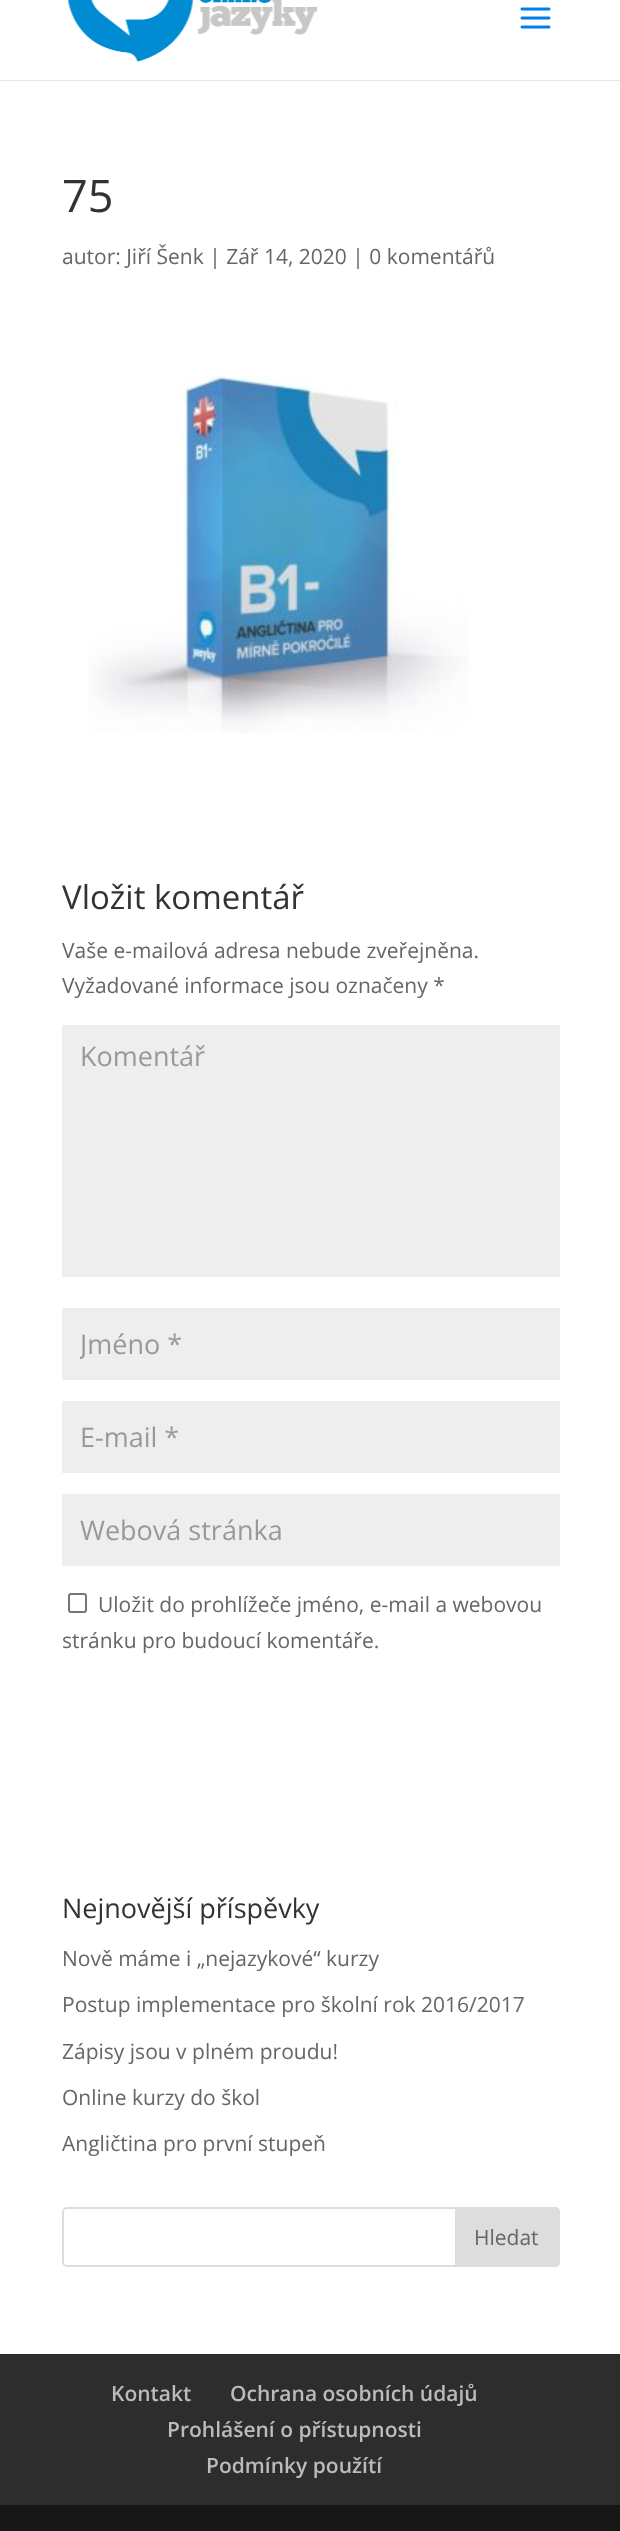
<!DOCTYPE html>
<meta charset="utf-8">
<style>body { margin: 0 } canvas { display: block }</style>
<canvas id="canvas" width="620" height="2531"></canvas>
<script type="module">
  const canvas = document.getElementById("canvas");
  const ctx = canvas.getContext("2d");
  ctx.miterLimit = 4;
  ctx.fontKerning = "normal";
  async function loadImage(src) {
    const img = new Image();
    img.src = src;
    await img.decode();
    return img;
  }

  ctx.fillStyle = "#ffffff";
  ctx.fillRect(0, 0, 620, 2531);
  ctx.fillStyle = "#e6e6e6";
  ctx.fillRect(0, 80, 620, 1);
  ctx.drawImage(await loadImage("img1.png"), 68, 0, 249, 62);
  ctx.drawImage(await loadImage("img2.png"), 520, 7, 31, 22);
  ctx.font = "45px Open Sans";
  ctx.fillStyle = "#333333";
  ctx.fillText("75", 62, 212);
  ctx.font = "21px Open Sans";
  ctx.fillStyle = "#666666";
  ctx.fillText("autor: Jiří Šenk | Zář 14, 2020 | 0 komentářů", 62, 264);
  ctx.drawImage(await loadImage("img3.png"), 88, 374, 381, 360);
  ctx.font = "33px Open Sans";
  ctx.fillStyle = "#333333";
  ctx.fillText("Vložit komentář", 62, 909);
  ctx.font = "21px Open Sans";
  ctx.fillStyle = "#666666";
  ctx.fillText("Vaše e-mailová adresa nebude zveřejněna.", 62, 958);
  ctx.fillText("Vyžadované informace jsou označeny *", 62, 993);
  ctx.fillStyle = "#eeeeee";
  ctx.fillRect(62, 1025, 498, 252);
  ctx.font = "27px Open Sans";
  ctx.fillStyle = "#999999";
  ctx.fillText("Komentář", 80, 1066);
  ctx.fillStyle = "#eeeeee";
  ctx.fillRect(62, 1308, 498, 72);
  ctx.save();
  ctx.beginPath();
  ctx.rect(80, 1326, 462, 36);
  ctx.clip();
  ctx.fillStyle = "#999999";
  ctx.fillText("Jméno *", 80, 1354);
  ctx.restore();
  ctx.fillRect(62, 1401, 498, 72);
  ctx.fillStyle = "#999999";
  ctx.fillText("E-mail *", 80, 1447);
  ctx.fillStyle = "#eeeeee";
  ctx.fillRect(62, 1494, 498, 72);
  ctx.fillStyle = "#999999";
  ctx.fillText("Webová stránka", 80, 1540);
  ctx.beginPath();
  ctx.roundRect(69, 1594, 17, 18, 2);
  ctx.strokeStyle = "#767676";
  ctx.lineWidth = 2;
  ctx.stroke();
  ctx.font = "21px Open Sans";
  ctx.fillStyle = "#666666";
  ctx.fillText("Uložit do prohlížeče jméno, e-mail a webovou", 98, 1612);
  ctx.fillText("stránku pro budoucí komentáře.", 62, 1648);
  ctx.font = "27px Open Sans";
  ctx.fillStyle = "#333333";
  ctx.fillText("Nejnovější příspěvky", 62, 1918);
  ctx.font = "21px Open Sans";
  ctx.fillStyle = "#666666";
  ctx.fillText("Nově máme i „nejazykové“ kurzy", 62, 1966);
  ctx.fillText("Postup implementace pro školní rok 2016/2017", 62, 2012);
  ctx.fillText("Zápisy jsou v plném proudu!", 62, 2059);
  ctx.fillText("Online kurzy do škol", 62, 2105);
  ctx.fillText("Angličtina pro první stupeň", 62, 2151);
  ctx.beginPath();
  ctx.roundRect(63, 2208, 496, 58, 4);
  ctx.strokeStyle = "#dddddd";
  ctx.stroke();
  ctx.fillStyle = "#dddddd";
  ctx.beginPath();
  ctx.roundRect(456, 2208, 103, 58, [0, 4, 4, 0]);
  ctx.fill();
  ctx.stroke();
  ctx.fillStyle = "#666666";
  ctx.fillText("Hledat", 474, 2245);
  ctx.fillStyle = "#2d2d2d";
  ctx.fillRect(0, 2354, 620, 151);
  ctx.font = "600 21px Open Sans";
  ctx.fillStyle = "#bbbbbb";
  ctx.fillText("Kontakt", 111, 2401);
  ctx.fillText("Ochrana osobních údajů", 230, 2401);
  ctx.fillText("Prohlášení o přístupnosti", 167, 2437);
  ctx.fillText("Podmínky použítí", 206, 2473);
  ctx.fillStyle = "#171717";
  ctx.fillRect(0, 2505, 620, 26);
</script>
